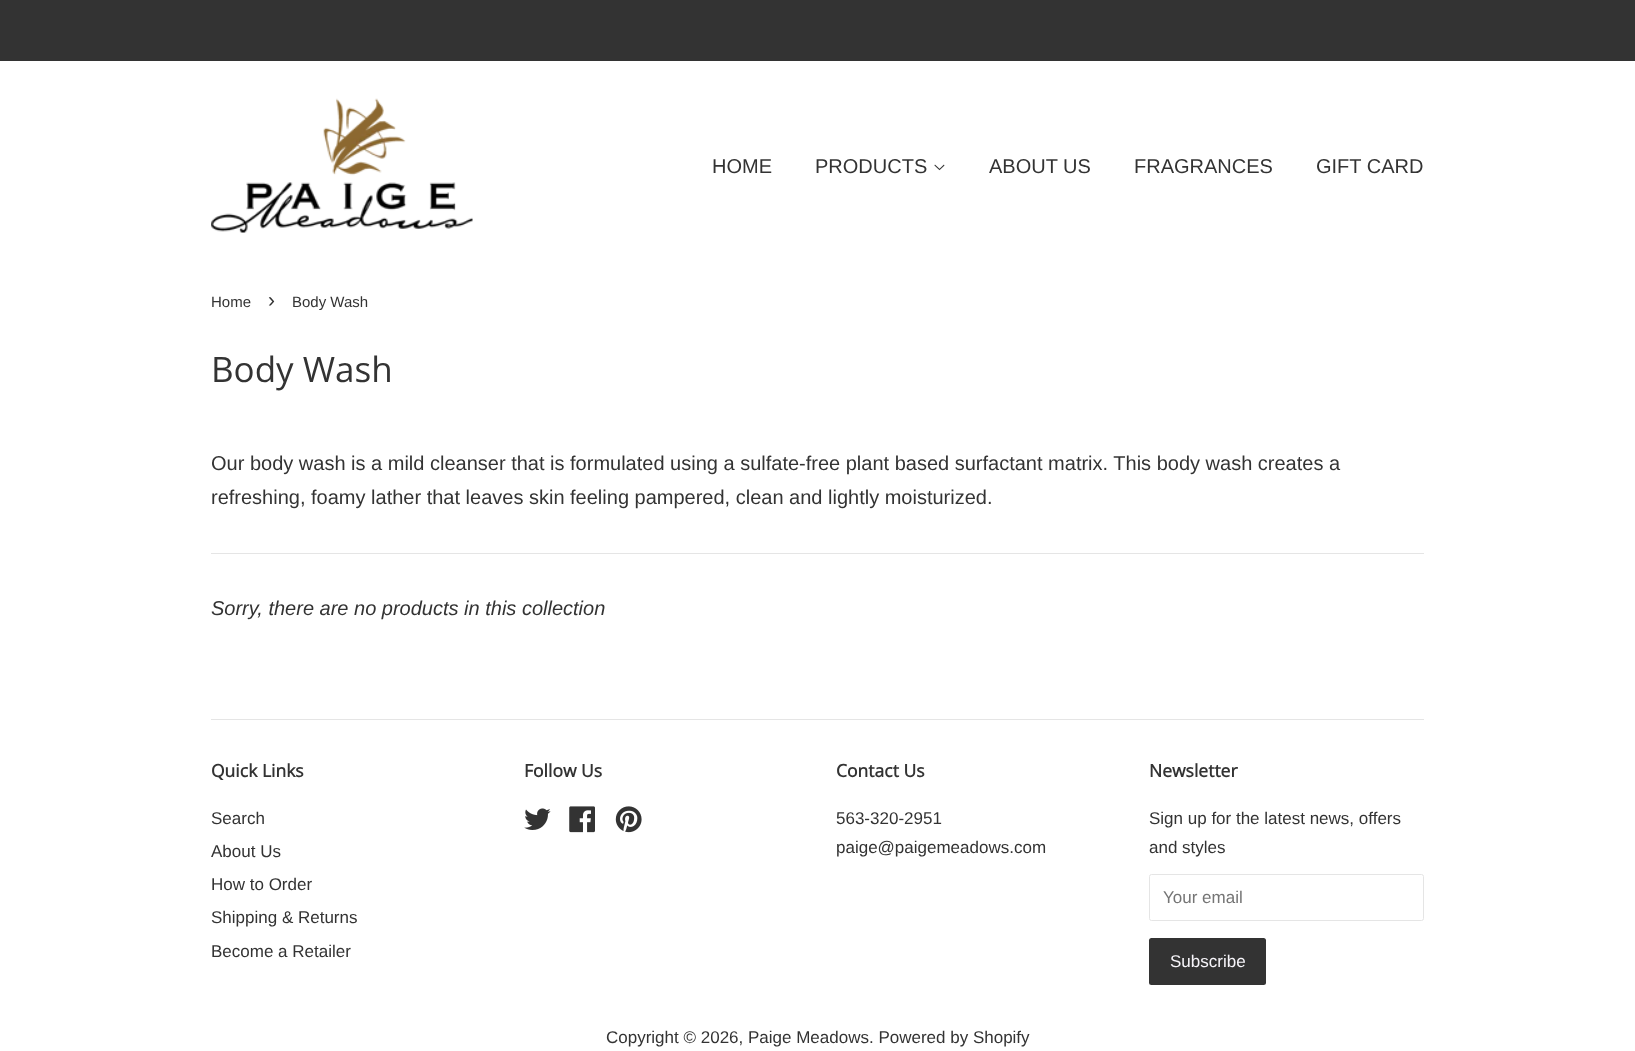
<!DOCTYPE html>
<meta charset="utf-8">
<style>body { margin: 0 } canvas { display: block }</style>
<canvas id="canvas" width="1635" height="1051"></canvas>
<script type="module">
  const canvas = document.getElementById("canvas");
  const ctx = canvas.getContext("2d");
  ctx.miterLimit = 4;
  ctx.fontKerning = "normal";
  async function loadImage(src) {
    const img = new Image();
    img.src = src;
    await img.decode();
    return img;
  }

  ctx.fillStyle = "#ffffff";
  ctx.fillRect(0, 0, 1635, 1051);
  ctx.fillStyle = "#333333";
  ctx.fillRect(0, 0, 1635, 61);
  ctx.drawImage(await loadImage("img1.png"), 211, 98, 262, 135);
  ctx.font = "20px Liberation Sans";
  ctx.fillText("HOME", 712, 173);
  ctx.fillText("PRODUCTS", 815, 173);
  ctx.drawImage(await loadImage("img2.png"), 934, 164, 11, 7);
  ctx.fillText("ABOUT US", 989, 173);
  ctx.fillText("FRAGRANCES", 1134, 173);
  ctx.fillText("GIFT CARD", 1316, 173);
  ctx.font = "15px Liberation Sans";
  ctx.fillText("Home", 211, 307);
  ctx.font = "21px Liberation Sans";
  ctx.fillText("›", 268, 307);
  ctx.font = "15px Liberation Sans";
  ctx.fillText("Body Wash", 292, 307);
  ctx.font = "35px Open Sans";
  ctx.fillText("Body Wash", 211, 382);
  ctx.font = "20px Liberation Sans";
  ctx.fillText("Our body wash is a mild cleanser that is formulated using a sulfate-free plant based surfactant matrix. This body wash creates a", 211, 470);
  ctx.fillText("refreshing, foamy lather that leaves skin feeling pampered, clean and lightly moisturized.", 211, 504);
  ctx.fillStyle = "#e5e5e5";
  ctx.fillRect(211, 553, 1213, 1);
  ctx.font = "italic 20px Liberation Sans";
  ctx.fillStyle = "#333333";
  ctx.fillText("Sorry, there are no products in this collection", 211, 615);
  ctx.fillStyle = "#e5e5e5";
  ctx.fillRect(211, 719, 1213, 1);
  ctx.font = "bold 17.5px Open Sans";
  ctx.fillStyle = "#333333";
  ctx.fillText("Quick Links", 211, 777);
  ctx.font = "17px Liberation Sans";
  ctx.fillText("Search", 211, 824);
  ctx.fillText("About Us", 211, 857);
  ctx.fillText("How to Order", 211, 890);
  ctx.fillText("Shipping & Returns", 211, 923);
  ctx.fillText("Become a Retailer", 211, 957);
  ctx.font = "bold 17.5px Open Sans";
  ctx.fillText("Follow Us", 524, 777);
  ctx.drawImage(await loadImage("img3.png"), 524, 808, 27, 22);
  ctx.drawImage(await loadImage("img4.png"), 569, 806, 26, 27);
  ctx.drawImage(await loadImage("img5.png"), 615, 806, 27, 27);
  ctx.fillText("Contact Us", 836, 777);
  ctx.font = "17px Liberation Sans";
  ctx.fillText("563-320-2951", 836, 824);
  ctx.fillText("paige@paigemeadows.com", 836, 853);
  ctx.font = "bold 17.5px Open Sans";
  ctx.fillText("Newsletter", 1149, 777);
  ctx.font = "17px Liberation Sans";
  ctx.fillText("Sign up for the latest news, offers", 1149, 824);
  ctx.fillText("and styles", 1149, 853);
  ctx.beginPath();
  ctx.roundRect(1149.5, 874.5, 274, 46, 2);
  ctx.strokeStyle = "#e5e5e5";
  ctx.stroke();
  ctx.fillStyle = "#757575";
  ctx.fillText("Your email", 1163, 903);
  ctx.fillStyle = "#333333";
  ctx.beginPath();
  ctx.roundRect(1149, 938, 117, 47, 2.5);
  ctx.fill();
  ctx.fillStyle = "#f7f5fa";
  ctx.fillText("Subscribe", 1170, 967);
  ctx.fillStyle = "#333333";
  ctx.fillText("Copyright © 2026, Paige Meadows. Powered by Shopify", 606, 1043);
</script>
